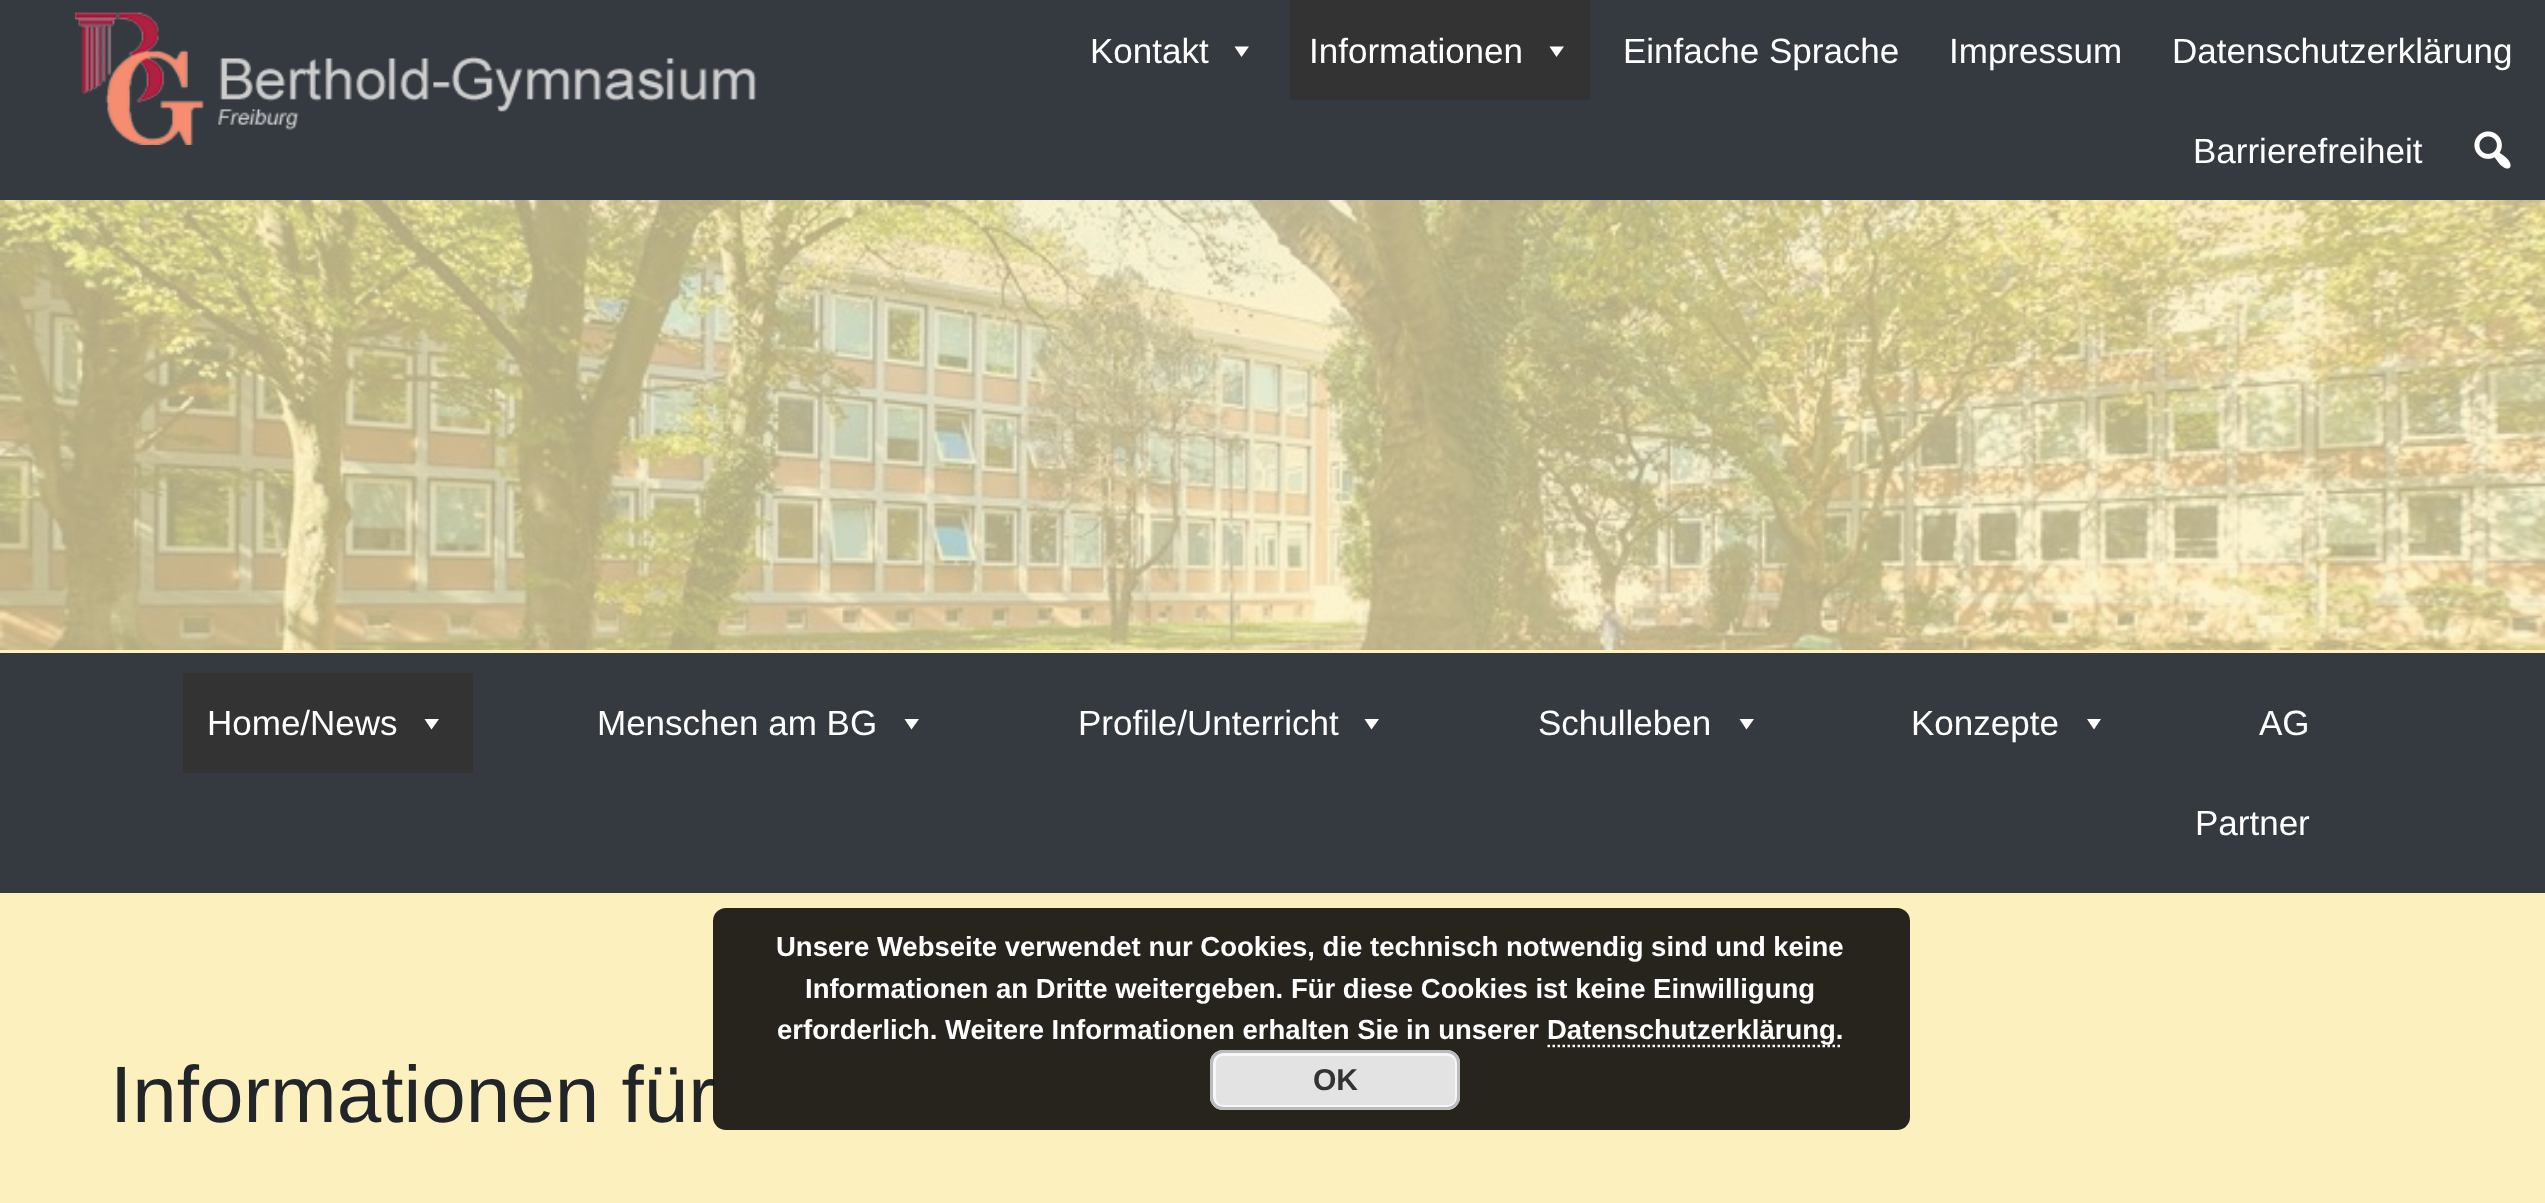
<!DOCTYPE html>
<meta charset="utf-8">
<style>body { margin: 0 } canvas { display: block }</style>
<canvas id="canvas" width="2545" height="1203"></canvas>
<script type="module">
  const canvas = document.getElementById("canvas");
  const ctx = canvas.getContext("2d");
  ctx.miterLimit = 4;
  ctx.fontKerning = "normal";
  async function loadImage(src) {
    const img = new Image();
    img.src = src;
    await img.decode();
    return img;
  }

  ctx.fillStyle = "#fcf0be";
  ctx.fillRect(0, 0, 2545, 1203);
  ctx.fillStyle = "#343a40";
  ctx.fillRect(0, 0, 2545, 200);
  ctx.drawImage(await loadImage("img1.png"), 75, 12, 682, 133);
  ctx.font = "35px Liberation Sans";
  ctx.fillStyle = "#ffffff";
  ctx.fillText("Kontakt", 1090, 63);
  ctx.beginPath();
  ctx.moveTo(1249, 46.5);
  ctx.lineTo(1241.5, 57);
  ctx.lineTo(1234.5, 46.5);
  ctx.closePath();
  ctx.fill();
  ctx.fillStyle = "#333333";
  ctx.fillRect(1290, 0, 300, 100);
  ctx.fillStyle = "#ffffff";
  ctx.fillText("Informationen", 1309, 63);
  ctx.beginPath();
  ctx.moveTo(1564, 46.5);
  ctx.lineTo(1556.5, 57);
  ctx.lineTo(1549.5, 46.5);
  ctx.closePath();
  ctx.fill();
  ctx.fillText("Einfache Sprache", 1623, 63);
  ctx.fillText("Impressum", 1949, 63);
  ctx.fillText("Datenschutzerklärung", 2172, 63);
  ctx.fillText("Barrierefreiheit", 2193, 163);
  ctx.drawImage(await loadImage("img2.png"), 2474, 131, 37, 38);
  ctx.drawImage(await loadImage("img3.png"), 0, 200, 2545, 450);
  ctx.fillStyle = "#343a40";
  ctx.fillRect(0, 653, 2545, 240);
  ctx.fillStyle = "#333333";
  ctx.fillRect(183, 673, 290, 100);
  ctx.fillStyle = "#ffffff";
  ctx.fillText("Home/News", 207, 735);
  ctx.beginPath();
  ctx.moveTo(439, 719);
  ctx.lineTo(431.5, 729.5);
  ctx.lineTo(424.5, 719);
  ctx.closePath();
  ctx.fill();
  ctx.fillText("Menschen am BG", 597, 735);
  ctx.beginPath();
  ctx.moveTo(919, 719);
  ctx.lineTo(911.5, 729.5);
  ctx.lineTo(904.5, 719);
  ctx.closePath();
  ctx.fill();
  ctx.fillText("Profile/Unterricht", 1078, 735);
  ctx.beginPath();
  ctx.moveTo(1379, 719);
  ctx.lineTo(1371.5, 729.5);
  ctx.lineTo(1364.5, 719);
  ctx.closePath();
  ctx.fill();
  ctx.fillText("Schulleben", 1538, 735);
  ctx.beginPath();
  ctx.moveTo(1754, 719);
  ctx.lineTo(1746.5, 729.5);
  ctx.lineTo(1739.5, 719);
  ctx.closePath();
  ctx.fill();
  ctx.fillText("Konzepte", 1911, 735);
  ctx.beginPath();
  ctx.moveTo(2101, 719);
  ctx.lineTo(2094, 729.5);
  ctx.lineTo(2087, 719);
  ctx.closePath();
  ctx.fill();
  ctx.fillText("AG", 2259, 735);
  ctx.fillText("Partner", 2195, 835);
  ctx.font = "80px Liberation Sans";
  ctx.fillStyle = "#212529";
  ctx.fillText("Informationen für", 110, 1122);
  ctx.fillStyle = "rgba(0, 0, 0, 0.85)";
  ctx.beginPath();
  ctx.roundRect(713, 908, 1197, 222, 13);
  ctx.fill();
  ctx.font = "bold 27.5px Liberation Sans";
  ctx.fillStyle = "#ffffff";
  ctx.fillText("Unsere Webseite verwendet nur Cookies, die technisch notwendig sind und keine", 776, 956);
  ctx.fillText("Informationen an Dritte weitergeben. Für diese Cookies ist keine Einwilligung", 805, 998);
  ctx.fillText("erforderlich. Weitere Informationen erhalten Sie in unserer", 777, 1039);
  ctx.beginPath();
  ctx.moveTo(1547.5, 1046);
  ctx.lineTo(1842.5, 1046);
  ctx.strokeStyle = "#ffffff";
  ctx.lineWidth = 2.5;
  ctx.setLineDash([2.5, 2.5]);
  ctx.stroke();
  ctx.fillText("Datenschutzerklärung.", 1547, 1039);
  ctx.fillStyle = "#e3e3e3";
  ctx.beginPath();
  ctx.roundRect(1210, 1050, 250, 60, 13);
  ctx.fill();
  ctx.beginPath();
  ctx.roundRect(1214.5, 1054.5, 242, 52, 8.5);
  ctx.strokeStyle = "#f6f6f6";
  ctx.lineWidth = 3;
  ctx.setLineDash([]);
  ctx.stroke();
  ctx.beginPath();
  ctx.roundRect(1211.5, 1051.5, 247, 57, 11.5);
  ctx.strokeStyle = "#bbbbbb";
  ctx.stroke();
  ctx.font = "bold 30px Liberation Sans";
  ctx.fillStyle = "#333333";
  ctx.fillText("OK", 1313, 1090);
</script>
